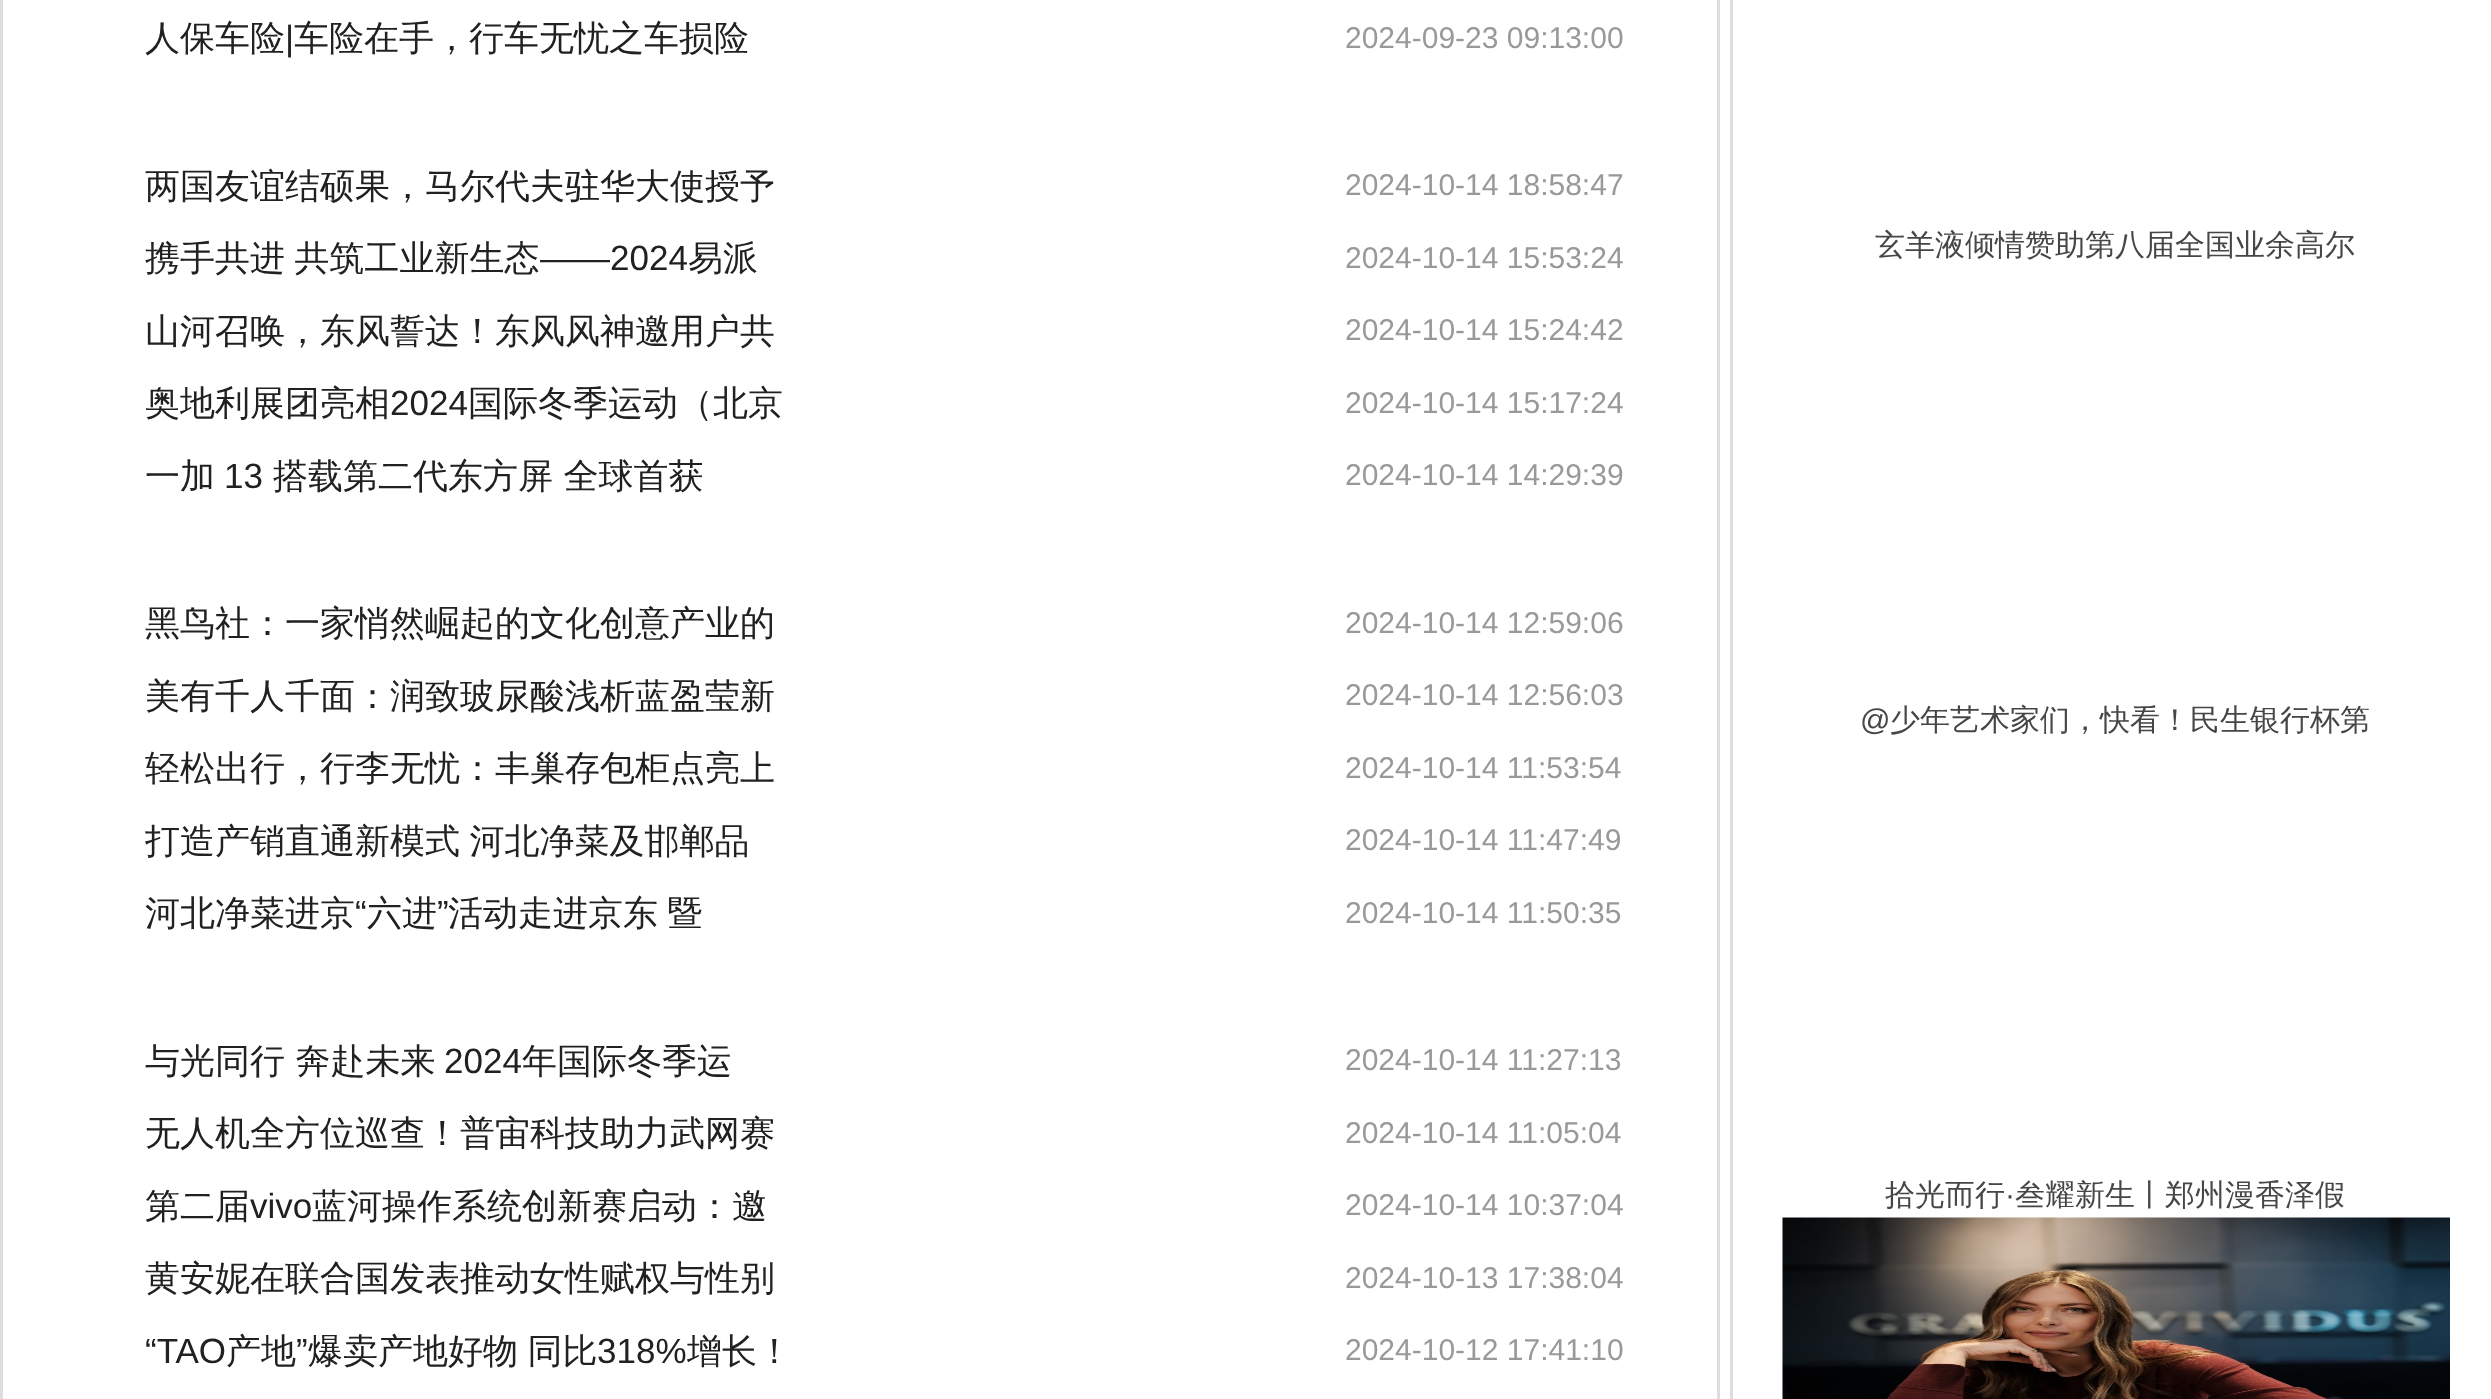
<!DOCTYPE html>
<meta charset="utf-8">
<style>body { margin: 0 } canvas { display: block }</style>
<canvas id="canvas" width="2491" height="1399"></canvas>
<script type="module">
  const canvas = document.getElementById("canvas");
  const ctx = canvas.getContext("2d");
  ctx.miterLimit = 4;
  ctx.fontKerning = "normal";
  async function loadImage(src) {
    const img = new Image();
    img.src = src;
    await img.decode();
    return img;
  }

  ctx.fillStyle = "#ffffff";
  ctx.fillRect(0, 0, 2491, 1399);
  ctx.strokeStyle = "#dddddd";
  ctx.lineWidth = 3;
  ctx.strokeRect(1.5, -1.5, 1717, 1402);
  ctx.font = "500 35px WenQuanYi Zen Hei";
  ctx.fillStyle = "#212121";
  ctx.fillText("人保车险", 145, 50);
  ctx.font = "35px Liberation Sans";
  ctx.fillText("|", 285, 50);
  ctx.font = "500 35px WenQuanYi Zen Hei";
  ctx.fillText("车险在手，行车无忧之车损险", 294, 50);
  ctx.font = "30px Liberation Sans";
  ctx.fillStyle = "#999999";
  ctx.fillText("2024-09-23 09:13:00", 1345, 48);
  ctx.font = "500 35px WenQuanYi Zen Hei";
  ctx.fillStyle = "#212121";
  ctx.fillText("两国友谊结硕果，马尔代夫驻华大使授予", 145, 198);
  ctx.font = "30px Liberation Sans";
  ctx.fillStyle = "#999999";
  ctx.fillText("2024-10-14 18:58:47", 1345, 195);
  ctx.wordSpacing = "-1px";
  ctx.font = "500 35px WenQuanYi Zen Hei";
  ctx.fillStyle = "#212121";
  ctx.fillText("携手共进 共筑工业新生态", 145, 270);
  ctx.wordSpacing = "0px";
  ctx.font = "35px Liberation Sans";
  ctx.fillText("——2024", 540, 270);
  ctx.font = "500 35px WenQuanYi Zen Hei";
  ctx.fillText("易派", 688, 270);
  ctx.font = "30px Liberation Sans";
  ctx.fillStyle = "#999999";
  ctx.fillText("2024-10-14 15:53:24", 1345, 268);
  ctx.font = "500 35px WenQuanYi Zen Hei";
  ctx.fillStyle = "#212121";
  ctx.fillText("山河召唤，东风誓达！东风风神邀用户共", 145, 343);
  ctx.font = "30px Liberation Sans";
  ctx.fillStyle = "#999999";
  ctx.fillText("2024-10-14 15:24:42", 1345, 340);
  ctx.font = "500 35px WenQuanYi Zen Hei";
  ctx.fillStyle = "#212121";
  ctx.fillText("奥地利展团亮相", 145, 415);
  ctx.font = "35px Liberation Sans";
  ctx.fillText("2024", 390, 415);
  ctx.font = "500 35px WenQuanYi Zen Hei";
  ctx.fillText("国际冬季运动（北京", 468, 415);
  ctx.font = "30px Liberation Sans";
  ctx.fillStyle = "#999999";
  ctx.fillText("2024-10-14 15:17:24", 1345, 413);
  ctx.font = "500 35px WenQuanYi Zen Hei";
  ctx.fillStyle = "#212121";
  ctx.fillText("一加", 145, 488);
  ctx.font = "35px Liberation Sans";
  ctx.fillText("13", 224, 488);
  ctx.font = "500 35px WenQuanYi Zen Hei";
  ctx.fillText("搭载第二代东方屏 全球首获", 273, 488);
  ctx.font = "30px Liberation Sans";
  ctx.fillStyle = "#999999";
  ctx.fillText("2024-10-14 14:29:39", 1345, 485);
  ctx.font = "500 35px WenQuanYi Zen Hei";
  ctx.fillStyle = "#212121";
  ctx.fillText("黑鸟社：一家悄然崛起的文化创意产业的", 145, 635);
  ctx.font = "30px Liberation Sans";
  ctx.fillStyle = "#999999";
  ctx.fillText("2024-10-14 12:59:06", 1345, 633);
  ctx.font = "500 35px WenQuanYi Zen Hei";
  ctx.fillStyle = "#212121";
  ctx.fillText("美有千人千面：润致玻尿酸浅析蓝盈莹新", 145, 708);
  ctx.font = "30px Liberation Sans";
  ctx.fillStyle = "#999999";
  ctx.fillText("2024-10-14 12:56:03", 1345, 705);
  ctx.font = "500 35px WenQuanYi Zen Hei";
  ctx.fillStyle = "#212121";
  ctx.fillText("轻松出行，行李无忧：丰巢存包柜点亮上", 145, 780);
  ctx.font = "30px Liberation Sans";
  ctx.fillStyle = "#999999";
  ctx.fillText("2024-10-14 11:53:54", 1345, 778);
  ctx.wordSpacing = "-1px";
  ctx.font = "500 35px WenQuanYi Zen Hei";
  ctx.fillStyle = "#212121";
  ctx.fillText("打造产销直通新模式 河北净菜及邯郸品", 145, 853);
  ctx.wordSpacing = "0px";
  ctx.font = "30px Liberation Sans";
  ctx.fillStyle = "#999999";
  ctx.fillText("2024-10-14 11:47:49", 1345, 850);
  ctx.font = "500 35px WenQuanYi Zen Hei";
  ctx.fillStyle = "#212121";
  ctx.fillText("河北净菜进京", 145, 925);
  ctx.font = "35px Liberation Sans";
  ctx.fillText("“", 355, 925);
  ctx.font = "500 35px WenQuanYi Zen Hei";
  ctx.fillText("六进", 367, 925);
  ctx.font = "35px Liberation Sans";
  ctx.fillText("”", 437, 925);
  ctx.wordSpacing = "-1px";
  ctx.font = "500 35px WenQuanYi Zen Hei";
  ctx.fillText("活动走进京东 暨", 448, 925);
  ctx.wordSpacing = "0px";
  ctx.font = "30px Liberation Sans";
  ctx.fillStyle = "#999999";
  ctx.fillText("2024-10-14 11:50:35", 1345, 923);
  ctx.font = "500 35px WenQuanYi Zen Hei";
  ctx.fillStyle = "#212121";
  ctx.fillText("与光同行 奔赴未来", 145, 1073);
  ctx.font = "35px Liberation Sans";
  ctx.fillText("2024", 444, 1073);
  ctx.font = "500 35px WenQuanYi Zen Hei";
  ctx.fillText("年国际冬季运", 522, 1073);
  ctx.font = "30px Liberation Sans";
  ctx.fillStyle = "#999999";
  ctx.fillText("2024-10-14 11:27:13", 1345, 1070);
  ctx.font = "500 35px WenQuanYi Zen Hei";
  ctx.fillStyle = "#212121";
  ctx.fillText("无人机全方位巡查！普宙科技助力武网赛", 145, 1145);
  ctx.font = "30px Liberation Sans";
  ctx.fillStyle = "#999999";
  ctx.fillText("2024-10-14 11:05:04", 1345, 1143);
  ctx.font = "500 35px WenQuanYi Zen Hei";
  ctx.fillStyle = "#212121";
  ctx.fillText("第二届", 145, 1218);
  ctx.font = "35px Liberation Sans";
  ctx.fillText("vivo", 250, 1218);
  ctx.font = "500 35px WenQuanYi Zen Hei";
  ctx.fillText("蓝河操作系统创新赛启动：邀", 312, 1218);
  ctx.font = "30px Liberation Sans";
  ctx.fillStyle = "#999999";
  ctx.fillText("2024-10-14 10:37:04", 1345, 1215);
  ctx.font = "500 35px WenQuanYi Zen Hei";
  ctx.fillStyle = "#212121";
  ctx.fillText("黄安妮在联合国发表推动女性赋权与性别", 145, 1290);
  ctx.font = "30px Liberation Sans";
  ctx.fillStyle = "#999999";
  ctx.fillText("2024-10-13 17:38:04", 1345, 1288);
  ctx.font = "35px Liberation Sans";
  ctx.fillStyle = "#212121";
  ctx.fillText("“TAO", 145, 1363);
  ctx.font = "500 35px WenQuanYi Zen Hei";
  ctx.fillText("产地", 226, 1363);
  ctx.font = "35px Liberation Sans";
  ctx.fillText("”", 296, 1363);
  ctx.wordSpacing = "-1px";
  ctx.font = "500 35px WenQuanYi Zen Hei";
  ctx.fillText("爆卖产地好物 同比", 308, 1363);
  ctx.wordSpacing = "0px";
  ctx.font = "35px Liberation Sans";
  ctx.fillText("318%", 597, 1363);
  ctx.font = "500 35px WenQuanYi Zen Hei";
  ctx.fillText("增长！", 687, 1363);
  ctx.font = "30px Liberation Sans";
  ctx.fillStyle = "#999999";
  ctx.fillText("2024-10-12 17:41:10", 1345, 1360);
  ctx.strokeRect(1731.5, -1.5, 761, 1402);
  ctx.font = "500 30px WenQuanYi Zen Hei";
  ctx.fillStyle = "#464646";
  ctx.fillText("玄羊液倾情赞助第八届全国业余高尔", 1875, 255);
  ctx.font = "30px Liberation Sans";
  ctx.fillText("@", 1860, 730);
  ctx.font = "500 30px WenQuanYi Zen Hei";
  ctx.fillText("少年艺术家们，快看！民生银行杯第", 1890, 730);
  ctx.fillText("拾光而行", 1885, 1205);
  ctx.font = "30px Liberation Sans";
  ctx.fillText("·", 2005, 1205);
  ctx.font = "500 30px WenQuanYi Zen Hei";
  ctx.fillText("叁耀新生丨郑州漫香泽假", 2015, 1205);
  ctx.drawImage(await loadImage("img1.png"), 1782, 1217, 668, 182);
</script>
